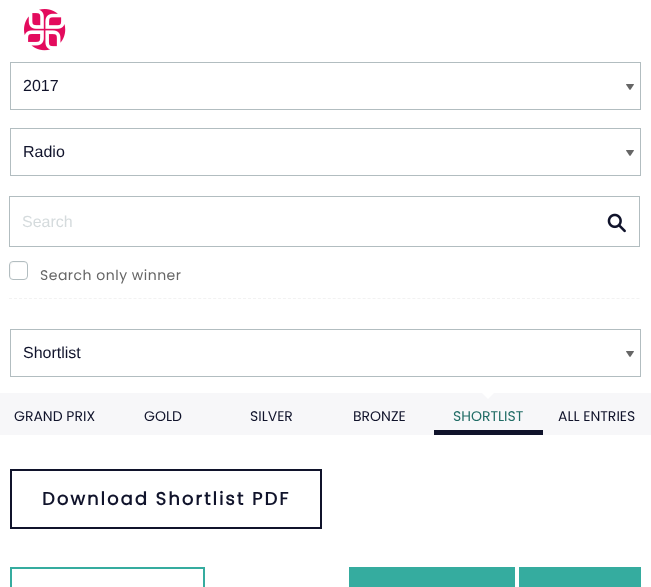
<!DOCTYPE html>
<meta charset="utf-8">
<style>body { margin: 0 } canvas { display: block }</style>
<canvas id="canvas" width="651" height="587"></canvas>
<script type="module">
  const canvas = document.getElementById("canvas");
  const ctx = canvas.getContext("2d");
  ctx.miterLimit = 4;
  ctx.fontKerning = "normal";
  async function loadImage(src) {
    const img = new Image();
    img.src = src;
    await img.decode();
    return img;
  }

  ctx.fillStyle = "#ffffff";
  ctx.fillRect(0, 0, 651, 587);
  ctx.drawImage(await loadImage("img1.png"), 24, 9, 42, 42);
  ctx.strokeStyle = "#b2bdc0";
  ctx.strokeRect(10.5, 62.5, 630, 47);
  ctx.font = "16px Liberation Sans";
  ctx.fillStyle = "#10132b";
  ctx.fillText("2017", 23, 91);
  ctx.font = "8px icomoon";
  ctx.fillStyle = "#666666";
  ctx.save();
  ctx.translate(626, 83);
  ctx.rotate(90 * Math.PI / 180);
  ctx.fillText("9", 0, 0);
  ctx.restore();
  ctx.strokeRect(10.5, 128.5, 630, 47);
  ctx.font = "16px Liberation Sans";
  ctx.fillStyle = "#10132b";
  ctx.fillText("Radio", 23, 157);
  ctx.font = "8px icomoon";
  ctx.fillStyle = "#666666";
  ctx.save();
  ctx.translate(626, 149);
  ctx.rotate(90 * Math.PI / 180);
  ctx.fillText("9", 0, 0);
  ctx.restore();
  ctx.beginPath();
  ctx.moveTo(9, 298.5);
  ctx.lineTo(640, 298.5);
  ctx.strokeStyle = "#f2f2f2";
  ctx.setLineDash([3, 1.98]);
  ctx.stroke();
  ctx.strokeStyle = "#b2bdc0";
  ctx.setLineDash([]);
  ctx.strokeRect(9.5, 196.5, 630, 50);
  ctx.font = "16px Liberation Sans";
  ctx.fillStyle = "#d5dbdd";
  ctx.fillText("Search", 22, 227);
  ctx.drawImage(await loadImage("img2.png"), 607, 213, 19, 20);
  ctx.fillStyle = "#f7f7f7";
  ctx.beginPath();
  ctx.moveTo(14, 263);
  ctx.lineTo(26.5, 263);
  ctx.bezierCurveTo(25, 261.5, 22, 262, 20.5, 262);
  ctx.bezierCurveTo(9, 262, 10, 261, 10, 272.5);
  ctx.bezierCurveTo(10, 274.5, 9.5, 277, 11.5, 278.5);
  ctx.bezierCurveTo(10.5, 277, 11, 266, 11.5, 264.5);
  ctx.bezierCurveTo(12, 263.5, 13, 263, 14, 263);
  ctx.closePath();
  ctx.fill();
  ctx.beginPath();
  ctx.roundRect(9.5, 261.5, 18, 18, 3.5);
  ctx.stroke();
  ctx.letterSpacing = "0.5px";
  ctx.font = "14px Poppins";
  ctx.fillStyle = "#666666";
  ctx.fillText("Search only winner", 40, 280);
  ctx.strokeRect(10.5, 329.5, 630, 47);
  ctx.letterSpacing = "0px";
  ctx.font = "16px Liberation Sans";
  ctx.fillStyle = "#10132b";
  ctx.fillText("Shortlist", 23, 358);
  ctx.font = "8px icomoon";
  ctx.fillStyle = "#666666";
  ctx.save();
  ctx.translate(626, 350);
  ctx.rotate(90 * Math.PI / 180);
  ctx.fillText("9", 0, 0);
  ctx.restore();
  ctx.fillStyle = "#f7f7f9";
  ctx.fillRect(0, 393, 651, 42);
  ctx.font = "14px Poppins";
  ctx.fillStyle = "#10132b";
  ctx.fillText("GRAND PRIX", 14, 421);
  ctx.fillText("GOLD", 144, 421);
  ctx.fillText("SILVER", 250, 421);
  ctx.fillText("BRONZE", 353, 421);
  ctx.fillRect(434, 430, 109, 5);
  ctx.fillStyle = "#ffffff";
  ctx.beginPath();
  ctx.moveTo(482, 393);
  ctx.lineTo(494, 393);
  ctx.lineTo(488, 399);
  ctx.closePath();
  ctx.fill();
  ctx.fillStyle = "#206c65";
  ctx.fillText("SHORTLIST", 453, 421);
  ctx.fillStyle = "#10132b";
  ctx.fillText("ALL ENTRIES", 558, 421);
  ctx.strokeStyle = "#10132b";
  ctx.lineWidth = 2;
  ctx.strokeRect(11, 470, 310, 58);
  ctx.letterSpacing = "2px";
  ctx.font = "bold 18px Poppins";
  ctx.fillText("Download Shortlist PDF", 42, 505);
  ctx.strokeStyle = "#35ac9f";
  ctx.strokeRect(11, 568, 193, 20);
  ctx.fillStyle = "#35ac9f";
  ctx.fillRect(349, 567, 166, 20);
  ctx.fillRect(519, 567, 122, 20);
</script>
